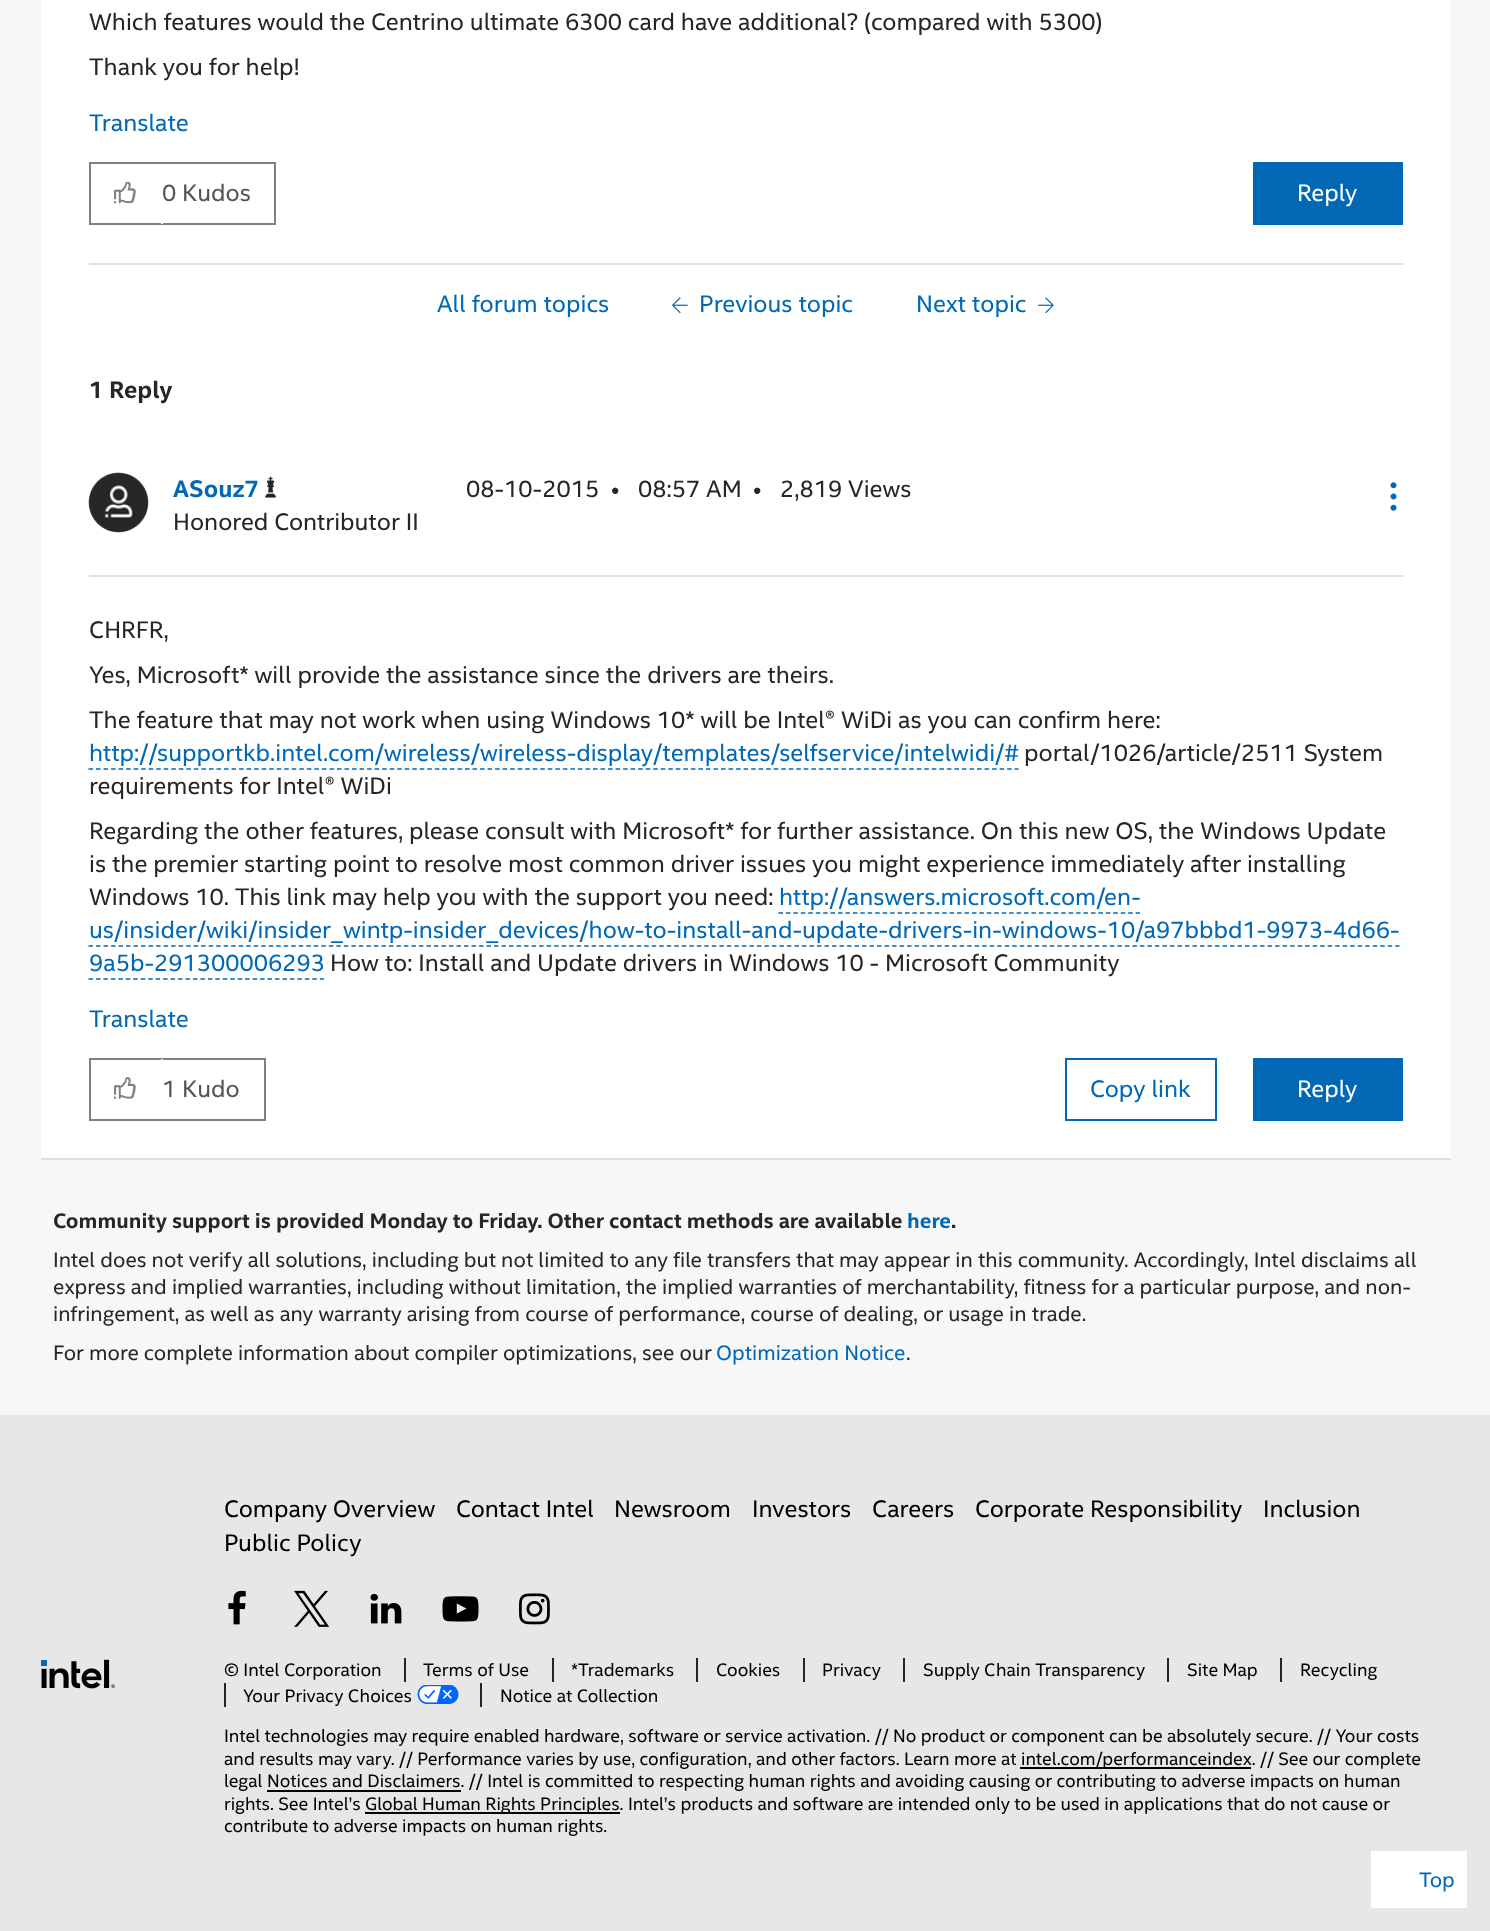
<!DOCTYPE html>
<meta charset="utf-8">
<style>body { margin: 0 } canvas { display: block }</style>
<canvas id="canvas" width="1490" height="1931"></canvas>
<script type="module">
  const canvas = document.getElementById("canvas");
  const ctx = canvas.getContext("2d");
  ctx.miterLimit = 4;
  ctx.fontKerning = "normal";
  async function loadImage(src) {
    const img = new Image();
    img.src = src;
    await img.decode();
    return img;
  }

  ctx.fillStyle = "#f7f7f7";
  ctx.fillRect(0, 0, 1490, 1931);
  ctx.fillStyle = "#ffffff";
  ctx.fillRect(41, 0, 1410, 1158);
  ctx.font = "24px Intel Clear";
  ctx.fillStyle = "#262626";
  ctx.fillText("Which features would the Centrino ultimate 6300 card have additional? (compared with 5300)", 89, 30);
  ctx.fillText("Thank you for help!", 89, 75);
  ctx.fillStyle = "#0068b5";
  ctx.fillText("Translate", 89, 131);
  ctx.strokeStyle = "#808080";
  ctx.lineWidth = 2;
  ctx.strokeRect(90, 163, 185, 61);
  ctx.drawImage(await loadImage("img1.png"), 114, 182, 22, 22);
  ctx.fillStyle = "#ffffff";
  ctx.fillRect(161, 223, 2, 1);
  ctx.fillStyle = "#555555";
  ctx.fillText("0 Kudos", 162, 201);
  ctx.fillStyle = "#0068b5";
  ctx.fillRect(1253, 162, 150, 63);
  ctx.fillStyle = "#ffffff";
  ctx.fillText("Reply", 1297, 201);
  ctx.fillStyle = "#e0e0e0";
  ctx.fillRect(89, 263, 1314, 2);
  ctx.fillStyle = "#0068b5";
  ctx.fillText("All forum topics", 437, 312);
  ctx.drawImage(await loadImage("img2.png"), 672, 297, 16, 17);
  ctx.fillText("Previous topic", 699, 312);
  ctx.fillText("Next topic", 916, 312);
  ctx.drawImage(await loadImage("img3.png"), 1038, 297, 16, 17);
  ctx.font = "bold 24px Intel Clear";
  ctx.fillStyle = "#262626";
  ctx.fillText("1 Reply", 89, 398);
  ctx.fillStyle = "#e0e0e0";
  ctx.fillRect(89, 575, 1314, 2);
  ctx.drawImage(await loadImage("img4.png"), 88, 472, 61, 61);
  ctx.fillStyle = "#0068b5";
  ctx.fillText("ASouz7", 173, 497);
  ctx.drawImage(await loadImage("img5.png"), 265, 476, 11, 22);
  ctx.font = "24px Intel Clear";
  ctx.fillStyle = "#262626";
  ctx.fillText("Honored Contributor II", 173, 530);
  ctx.fillText("08-10-2015", 466, 497);
  ctx.fillText("•", 611, 497);
  ctx.fillText("08:57 AM", 638, 497);
  ctx.fillText("•", 753, 497);
  ctx.fillText("2,819 Views", 780, 497);
  ctx.drawImage(await loadImage("img6.png"), 1390, 482, 7, 29);
  ctx.fillText("CHRFR,", 89, 638);
  ctx.fillText("Yes, Microsoft* will provide the assistance since the drivers are theirs.", 89, 683);
  ctx.fillText("The feature that may not work when using Windows 10* will be Intel® WiDi as you can confirm here:", 89, 728);
  ctx.fillStyle = "#0068b5";
  ctx.fillText("http://supportkb.intel.com/wireless/wireless-display/templates/selfservice/intelwidi/#", 89, 761);
  ctx.beginPath();
  ctx.moveTo(88.5, 769);
  ctx.lineTo(1018.5, 769);
  ctx.strokeStyle = "#0068b5";
  ctx.lineWidth = 1.5;
  ctx.setLineDash([4.5, 3.03]);
  ctx.stroke();
  ctx.fillStyle = "#262626";
  ctx.fillText("portal/1026/article/2511 System", 1024, 761);
  ctx.fillText("requirements for Intel® WiDi", 89, 794);
  ctx.fillText("Regarding the other features, please consult with Microsoft* for further assistance. On this new OS, the Windows Update", 89, 839);
  ctx.fillText("is the premier starting point to resolve most common driver issues you might experience immediately after installing", 89, 872);
  ctx.fillText("Windows 10. This link may help you with the support you need:", 89, 905);
  ctx.fillStyle = "#0068b5";
  ctx.fillText("http://answers.microsoft.com/en-", 779, 905);
  ctx.beginPath();
  ctx.moveTo(778.5, 913);
  ctx.lineTo(1140, 913);
  ctx.setLineDash([4.5, 2.94]);
  ctx.stroke();
  ctx.fillText("us/insider/wiki/insider_wintp-insider_devices/how-to-install-and-update-drivers-in-windows-10/a97bbbd1-9973-4d66-", 89, 938);
  ctx.beginPath();
  ctx.moveTo(88.5, 946);
  ctx.lineTo(1399.5, 946);
  ctx.setLineDash([4.5, 3.01]);
  ctx.stroke();
  ctx.fillText("9a5b-291300006293", 89, 971);
  ctx.beginPath();
  ctx.moveTo(88.5, 979);
  ctx.lineTo(324, 979);
  ctx.setLineDash([4.5, 2.96]);
  ctx.stroke();
  ctx.fillStyle = "#262626";
  ctx.fillText("How to: Install and Update drivers in Windows 10 - Microsoft Community", 330, 971);
  ctx.fillStyle = "#0068b5";
  ctx.fillText("Translate", 89, 1027);
  ctx.strokeStyle = "#808080";
  ctx.lineWidth = 2;
  ctx.setLineDash([]);
  ctx.strokeRect(90, 1059, 175, 61);
  ctx.drawImage(await loadImage("img7.png"), 114, 1077, 22, 22);
  ctx.fillStyle = "#ffffff";
  ctx.fillRect(161, 1059, 2, 1);
  ctx.fillStyle = "#555555";
  ctx.fillText("1 Kudo", 162, 1097);
  ctx.strokeStyle = "#0068b5";
  ctx.strokeRect(1066, 1059, 150, 61);
  ctx.fillStyle = "#0068b5";
  ctx.fillText("Copy link", 1090, 1097);
  ctx.fillRect(1253, 1058, 150, 63);
  ctx.fillStyle = "#ffffff";
  ctx.fillText("Reply", 1297, 1097);
  ctx.fillStyle = "#e0e0e0";
  ctx.fillRect(41, 1158, 1410, 2);
  ctx.font = "bold 21px Intel Clear";
  ctx.fillStyle = "#262626";
  ctx.fillText("Community support is provided Monday to Friday. Other contact methods are available", 53, 1228);
  ctx.fillStyle = "#0068b5";
  ctx.fillText("here", 907, 1228);
  ctx.fillStyle = "#262626";
  ctx.fillText(".", 951, 1228);
  ctx.font = "21px Intel Clear";
  ctx.fillText("Intel does not verify all solutions, including but not limited to any file transfers that may appear in this community. Accordingly, Intel disclaims all", 53, 1267);
  ctx.fillText("express and implied warranties, including without limitation, the implied warranties of merchantability, fitness for a particular purpose, and non-", 53, 1294);
  ctx.fillText("infringement, as well as any warranty arising from course of performance, course of dealing, or usage in trade.", 53, 1321);
  ctx.fillText("For more complete information about compiler optimizations, see our", 53, 1360);
  ctx.fillStyle = "#0068b5";
  ctx.fillText("Optimization Notice", 716, 1360);
  ctx.fillStyle = "#262626";
  ctx.fillText(".", 906, 1360);
  ctx.fillStyle = "#e7e7e7";
  ctx.fillRect(0, 1415, 1490, 516);
  ctx.fillStyle = "#ffffff";
  ctx.fillRect(1371, 1851, 96, 57);
  ctx.fillStyle = "#0068b5";
  ctx.fillText("Top", 1419, 1887);
  ctx.drawImage(await loadImage("img8.png"), 41, 1659, 74, 30);
  ctx.font = "24px Intel Clear";
  ctx.fillStyle = "#000000";
  ctx.fillText("Company Overview", 224, 1517);
  ctx.fillText("Contact Intel", 456, 1517);
  ctx.fillText("Newsroom", 614, 1517);
  ctx.fillText("Investors", 752, 1517);
  ctx.fillText("Careers", 872, 1517);
  ctx.fillText("Corporate Responsibility", 975, 1517);
  ctx.fillText("Inclusion", 1263, 1517);
  ctx.fillText("Public Policy", 224, 1551);
  ctx.drawImage(await loadImage("img9.png"), 228, 1590, 18, 35);
  ctx.drawImage(await loadImage("img10.png"), 294, 1590, 36, 37);
  ctx.drawImage(await loadImage("img11.png"), 370, 1593, 32, 31);
  ctx.drawImage(await loadImage("img12.png"), 442, 1596, 37, 26);
  ctx.drawImage(await loadImage("img13.png"), 519, 1593, 31, 32);
  ctx.font = "18px Intel Clear";
  ctx.fillText("© Intel Corporation", 224, 1676);
  ctx.fillText("Terms of Use", 423, 1676);
  ctx.fillStyle = "#262626";
  ctx.fillRect(404, 1658, 2, 24);
  ctx.fillStyle = "#000000";
  ctx.fillText("*Trademarks", 571, 1676);
  ctx.fillStyle = "#262626";
  ctx.fillRect(552, 1658, 2, 24);
  ctx.fillStyle = "#000000";
  ctx.fillText("Cookies", 716, 1676);
  ctx.fillStyle = "#262626";
  ctx.fillRect(696, 1658, 2, 24);
  ctx.fillStyle = "#000000";
  ctx.fillText("Privacy", 822, 1676);
  ctx.fillStyle = "#262626";
  ctx.fillRect(803, 1658, 2, 24);
  ctx.fillStyle = "#000000";
  ctx.fillText("Supply Chain Transparency", 923, 1676);
  ctx.fillStyle = "#262626";
  ctx.fillRect(903, 1658, 2, 24);
  ctx.fillStyle = "#000000";
  ctx.fillText("Site Map", 1187, 1676);
  ctx.fillStyle = "#262626";
  ctx.fillRect(1167, 1658, 2, 24);
  ctx.fillStyle = "#000000";
  ctx.fillText("Recycling", 1300, 1676);
  ctx.fillStyle = "#262626";
  ctx.fillRect(1280, 1658, 2, 24);
  ctx.fillRect(224, 1683, 2, 24);
  ctx.fillStyle = "#000000";
  ctx.fillText("Your Privacy Choices", 243, 1702);
  ctx.drawImage(await loadImage("img14.png"), 417, 1685, 42, 19);
  ctx.fillText("Notice at Collection", 500, 1702);
  ctx.fillStyle = "#262626";
  ctx.fillRect(480, 1683, 2, 24);
  ctx.fillStyle = "#000000";
  ctx.fillText("Intel technologies may require enabled hardware, software or service activation. // No product or component can be absolutely secure. // Your costs", 224, 1742);
  ctx.fillText("and results may vary. // Performance varies by use, configuration, and other factors. Learn more at", 224, 1765);
  ctx.fillRect(1020, 1767, 231, 2);
  ctx.fillText("intel.com/performanceindex. // See our complete", 1021, 1765);
  ctx.fillText("legal Notices and Disclaimers. // Intel is committed to respecting human rights and avoiding causing or contributing to adverse impacts on human", 224, 1787);
  ctx.fillRect(267, 1790, 194, 2);
  ctx.fillText("rights. See Intel’s", 224, 1810);
  ctx.fillRect(365, 1812, 255, 2);
  ctx.fillText("Global Human Rights Principles. Intel’s products and software are intended only to be used in applications that do not cause or", 365, 1810);
  ctx.fillText("contribute to adverse impacts on human rights.", 224, 1832);
</script>
